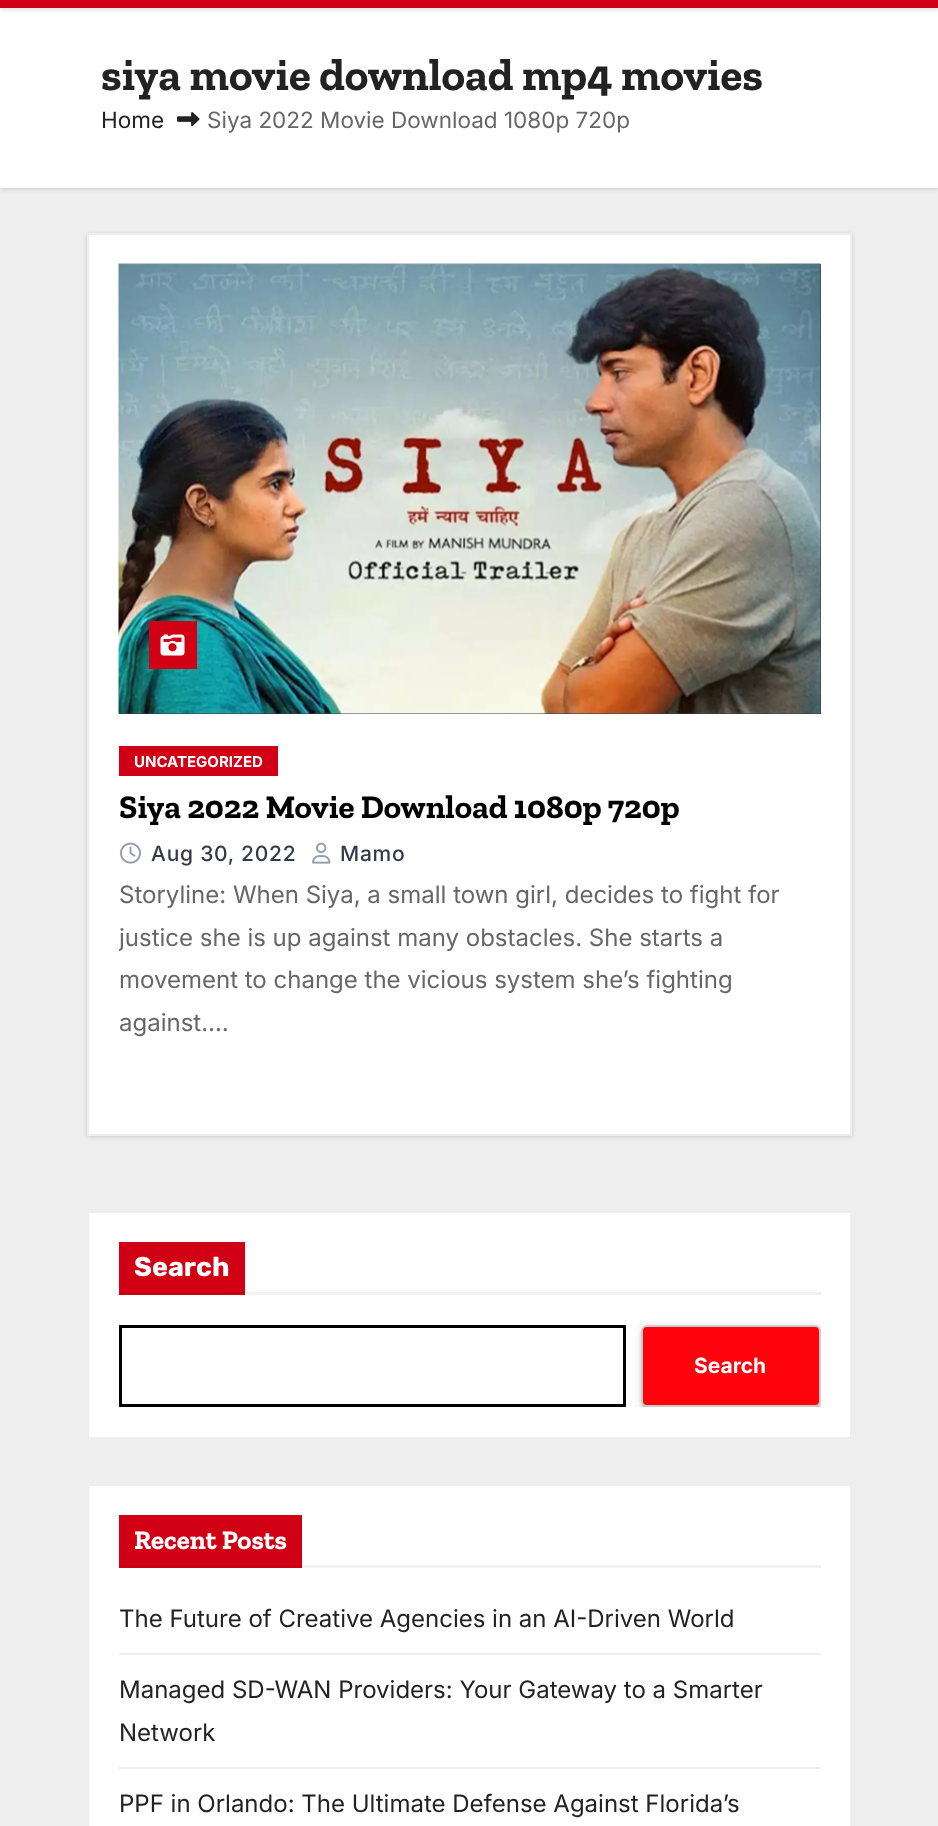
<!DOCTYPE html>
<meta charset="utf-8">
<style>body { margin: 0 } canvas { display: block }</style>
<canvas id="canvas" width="938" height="1826"></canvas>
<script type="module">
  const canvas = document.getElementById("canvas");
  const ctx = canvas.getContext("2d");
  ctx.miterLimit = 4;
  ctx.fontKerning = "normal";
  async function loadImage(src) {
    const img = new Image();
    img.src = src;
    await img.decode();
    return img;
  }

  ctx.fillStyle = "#eeeeee";
  ctx.fillRect(0, 0, 938, 1826);
  ctx.fillStyle = "rgba(0, 0, 0, 0.15)";
  ctx.filter = "blur(2px)";
  ctx.beginPath();
  ctx.rect(0, 9, 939, 180);
  ctx.fill();
  ctx.filter = "none";
  ctx.fillStyle = "#ffffff";
  ctx.fillRect(0, 8, 938, 180);
  ctx.fillStyle = "rgba(0, 0, 0, 0.08)";
  ctx.filter = "blur(1.5px)";
  ctx.beginPath();
  ctx.rect(0, -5, 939, 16);
  ctx.fill();
  ctx.filter = "none";
  ctx.fillStyle = "#d10014";
  ctx.fillRect(0, 0, 938, 8);
  ctx.font = "bold 45px Zilla Slab";
  ctx.fillStyle = "#222222";
  ctx.fillText("siya movie download mp4 movies", 101, 90);
  ctx.font = "22.5px Inter";
  ctx.fillText("Home", 101, 128);
  ctx.drawImage(await loadImage("img1.png"), 177, 112, 23, 14);
  ctx.fillStyle = "#666666";
  ctx.fillText("Siya 2022 Movie Download 1080p 720p", 207, 128);
  ctx.fillStyle = "rgba(0, 0, 0, 0.15)";
  ctx.filter = "blur(2px)";
  ctx.beginPath();
  ctx.rect(87, 234, 765, 903);
  ctx.fill();
  ctx.filter = "none";
  ctx.fillStyle = "#ffffff";
  ctx.beginPath();
  ctx.rect(88, 234, 763, 901);
  ctx.fill();
  ctx.strokeStyle = "#eeeeee";
  ctx.lineWidth = 2;
  ctx.stroke();
  ctx.fillStyle = "#333333";
  ctx.fillRect(119, 264, 702, 450);
  ctx.drawImage(await loadImage("img2.png"), 118, 263, 703, 451);
  ctx.fillStyle = "#d10014";
  ctx.fillRect(149, 621, 48, 48);
  ctx.drawImage(await loadImage("img3.png"), 160, 634, 25, 22);
  ctx.fillRect(119, 746, 159, 30);
  ctx.font = "bold 15px Inter";
  ctx.fillStyle = "#ffffff";
  ctx.fillText("UNCATEGORIZED", 134, 767);
  ctx.font = "bold 33px Zilla Slab";
  ctx.fillStyle = "#000000";
  ctx.fillText("Siya 2022 Movie Download 1080p 720p", 119, 818);
  ctx.drawImage(await loadImage("img4.png"), 120, 842, 21, 22);
  ctx.letterSpacing = "0.75px";
  ctx.font = "500 21px Inter";
  ctx.fillStyle = "#353949";
  ctx.fillText("Aug 30, 2022", 151, 861);
  ctx.drawImage(await loadImage("img5.png"), 312, 842, 19, 22);
  ctx.fillText("Mamo", 340, 861);
  ctx.letterSpacing = "0px";
  ctx.font = "24px Inter";
  ctx.fillStyle = "#666666";
  ctx.fillText("Storyline: When Siya, a small town girl, decides to fight for", 119, 903);
  ctx.save();
  ctx.beginPath();
  ctx.rect(119, 873, 702, 195);
  ctx.clip();
  ctx.fillText("justice she is up against many obstacles. She starts a", 119, 946);
  ctx.restore();
  ctx.fillText("movement to change the vicious system she’s fighting", 119, 988);
  ctx.fillText("against.…", 119, 1031);
  ctx.fillStyle = "#ffffff";
  ctx.fillRect(89, 1213, 761, 224);
  ctx.fillStyle = "#f2f2f2";
  ctx.fillRect(245, 1292, 576, 3);
  ctx.fillStyle = "#d10014";
  ctx.fillRect(119, 1242, 126, 50);
  ctx.fillStyle = "#c70013";
  ctx.fillRect(119, 1292, 126, 3);
  ctx.font = "bold 27px Rubik";
  ctx.fillStyle = "#ffffff";
  ctx.fillText("Search", 134, 1276);
  ctx.strokeStyle = "#000000";
  ctx.lineWidth = 3;
  ctx.strokeRect(120.5, 1326.5, 504, 79);
  ctx.save();
  ctx.beginPath();
  ctx.rect(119, 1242, 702, 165);
  ctx.clip();
  ctx.fillStyle = "rgba(0, 0, 0, 0.12)";
  ctx.filter = "blur(4px)";
  ctx.beginPath();
  ctx.roundRect(641, 1326, 180, 83, 6);
  ctx.fill();
  ctx.filter = "none";
  ctx.fillStyle = "rgba(0, 0, 0, 0.2)";
  ctx.filter = "blur(1px)";
  ctx.beginPath();
  ctx.roundRect(644, 1332, 174, 77, 3);
  ctx.fill();
  ctx.filter = "none";
  ctx.fillStyle = "rgba(0, 0, 0, 0.14)";
  ctx.filter = "blur(1.5px)";
  ctx.beginPath();
  ctx.roundRect(641, 1328, 180, 82, 6);
  ctx.fill();
  ctx.filter = "none";
  ctx.restore();
  ctx.fillStyle = "#ff030d";
  ctx.beginPath();
  ctx.roundRect(642, 1326, 178, 80, 5);
  ctx.fill();
  ctx.strokeStyle = "#cccccc";
  ctx.lineWidth = 2;
  ctx.stroke();
  ctx.font = "bold 21px Inter";
  ctx.fillStyle = "#ffffff";
  ctx.fillText("Search", 694, 1373);
  ctx.fillRect(89, 1486, 761, 340);
  ctx.fillStyle = "#f2f2f2";
  ctx.fillRect(302, 1565, 519, 3);
  ctx.fillStyle = "#d10014";
  ctx.fillRect(119, 1515, 183, 50);
  ctx.fillStyle = "#c70013";
  ctx.fillRect(119, 1565, 183, 3);
  ctx.font = "bold 27px Zilla Slab";
  ctx.fillStyle = "#ffffff";
  ctx.fillText("Recent Posts", 134, 1549);
  ctx.fillStyle = "#eeeeee";
  ctx.fillRect(119, 1653, 702, 2);
  ctx.font = "24px Inter";
  ctx.fillStyle = "#222222";
  ctx.fillText("The Future of Creative Agencies in an AI-Driven World", 119, 1627);
  ctx.fillStyle = "#eeeeee";
  ctx.fillRect(119, 1767, 702, 2);
  ctx.fillStyle = "#222222";
  ctx.fillText("Managed SD-WAN Providers: Your Gateway to a Smarter", 119, 1698);
  ctx.fillText("Network", 119, 1741);
  ctx.fillText("PPF in Orlando: The Ultimate Defense Against Florida’s", 119, 1812);
</script>
